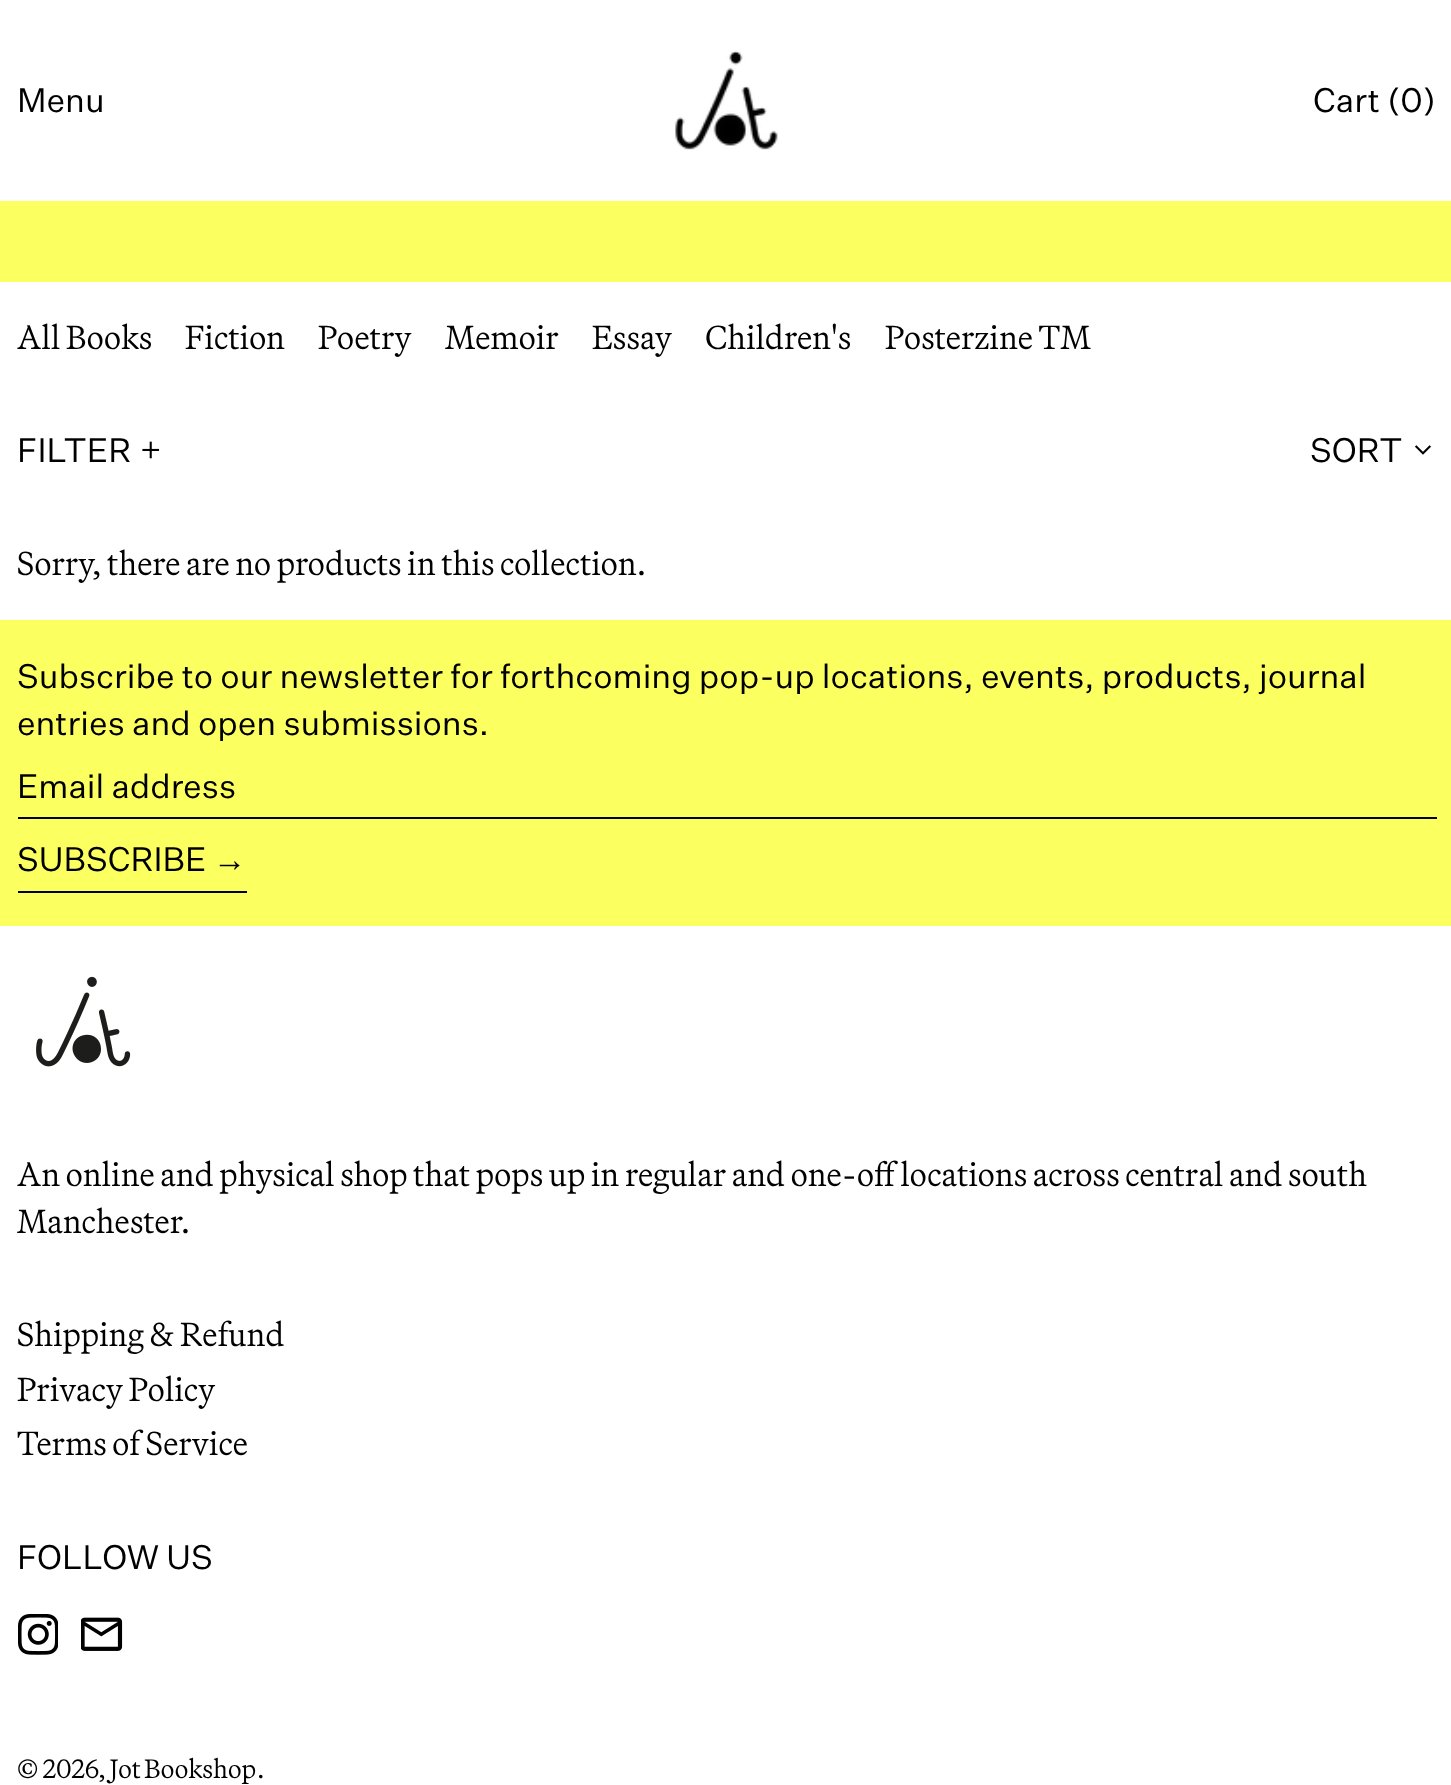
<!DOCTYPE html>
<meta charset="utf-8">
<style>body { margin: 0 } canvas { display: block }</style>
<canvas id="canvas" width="1451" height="1785"></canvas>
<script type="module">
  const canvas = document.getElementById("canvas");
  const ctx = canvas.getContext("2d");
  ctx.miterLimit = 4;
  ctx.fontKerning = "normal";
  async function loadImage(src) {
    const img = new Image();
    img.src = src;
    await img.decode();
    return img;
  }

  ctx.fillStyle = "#ffffff";
  ctx.fillRect(0, 0, 1451, 1785);
  ctx.font = "33.25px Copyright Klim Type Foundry";
  ctx.fillStyle = "#000000";
  ctx.fillText("Menu", 17, 112);
  ctx.drawImage(await loadImage("img1.png"), 675, 50, 103, 100);
  ctx.fillText("Cart (0)", 1313, 112);
  ctx.fillStyle = "#fcff60";
  ctx.fillRect(0, 201, 1451, 81);
  ctx.font = "300 33.25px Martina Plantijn";
  ctx.fillStyle = "#000000";
  ctx.fillText("All Books", 17, 349);
  ctx.fillText("Fiction", 185, 349);
  ctx.fillText("Poetry", 318, 349);
  ctx.fillText("Memoir", 445, 349);
  ctx.fillText("Essay", 592, 349);
  ctx.fillText("Children's", 705, 349);
  ctx.fillText("Posterzine TM", 885, 349);
  ctx.font = "33.25px Copyright Klim Type Foundry";
  ctx.fillText("FILTER", 17, 462);
  ctx.drawImage(await loadImage("img2.png"), 142, 441, 18, 18);
  ctx.fillText("SORT", 1310, 462);
  ctx.drawImage(await loadImage("img3.png"), 1415, 445, 16, 10);
  ctx.font = "300 33.25px Martina Plantijn";
  ctx.fillText("Sorry, there are no products in this collection.", 17, 575);
  ctx.fillStyle = "#fcff60";
  ctx.fillRect(0, 620, 1451, 306);
  ctx.font = "33.25px Copyright Klim Type Foundry";
  ctx.fillStyle = "#000000";
  ctx.fillText("Subscribe to our newsletter for forthcoming pop-up locations, events, products, journal", 17, 688);
  ctx.fillText("entries and open submissions.", 17, 735);
  ctx.fillStyle = "#030303";
  ctx.fillRect(18, 817, 1419, 2);
  ctx.fillStyle = "#000000";
  ctx.fillText("Email address", 17, 798);
  ctx.fillStyle = "#030303";
  ctx.fillRect(18, 891, 229, 2);
  ctx.fillStyle = "#000000";
  ctx.fillText("SUBSCRIBE", 17, 871);
  ctx.font = "33.25px Liberation Serif";
  ctx.fillText("→", 213, 871);
  ctx.drawImage(await loadImage("img4.png"), 36, 976, 95, 91);
  ctx.font = "300 33.25px Martina Plantijn";
  ctx.fillText("An online and physical shop that pops up in regular and one-off locations across central and south", 17, 1186);
  ctx.fillText("Manchester.", 17, 1233);
  ctx.fillText("Shipping & Refund", 17, 1346);
  ctx.fillText("Privacy Policy", 17, 1401);
  ctx.fillText("Terms of Service", 17, 1455);
  ctx.font = "33.25px Copyright Klim Type Foundry";
  ctx.fillText("FOLLOW US", 17, 1569);
  ctx.drawImage(await loadImage("img5.png"), 18, 1614, 40, 41);
  ctx.drawImage(await loadImage("img6.png"), 81, 1617, 42, 34);
  ctx.font = "300 26.5px Martina Plantijn";
  ctx.fillText("© 2026,", 17, 1778);
  ctx.wordSpacing = "-1px";
  ctx.fillText("Jot Bookshop", 110, 1778);
  ctx.wordSpacing = "0px";
  ctx.fillText(".", 257, 1778);
</script>
